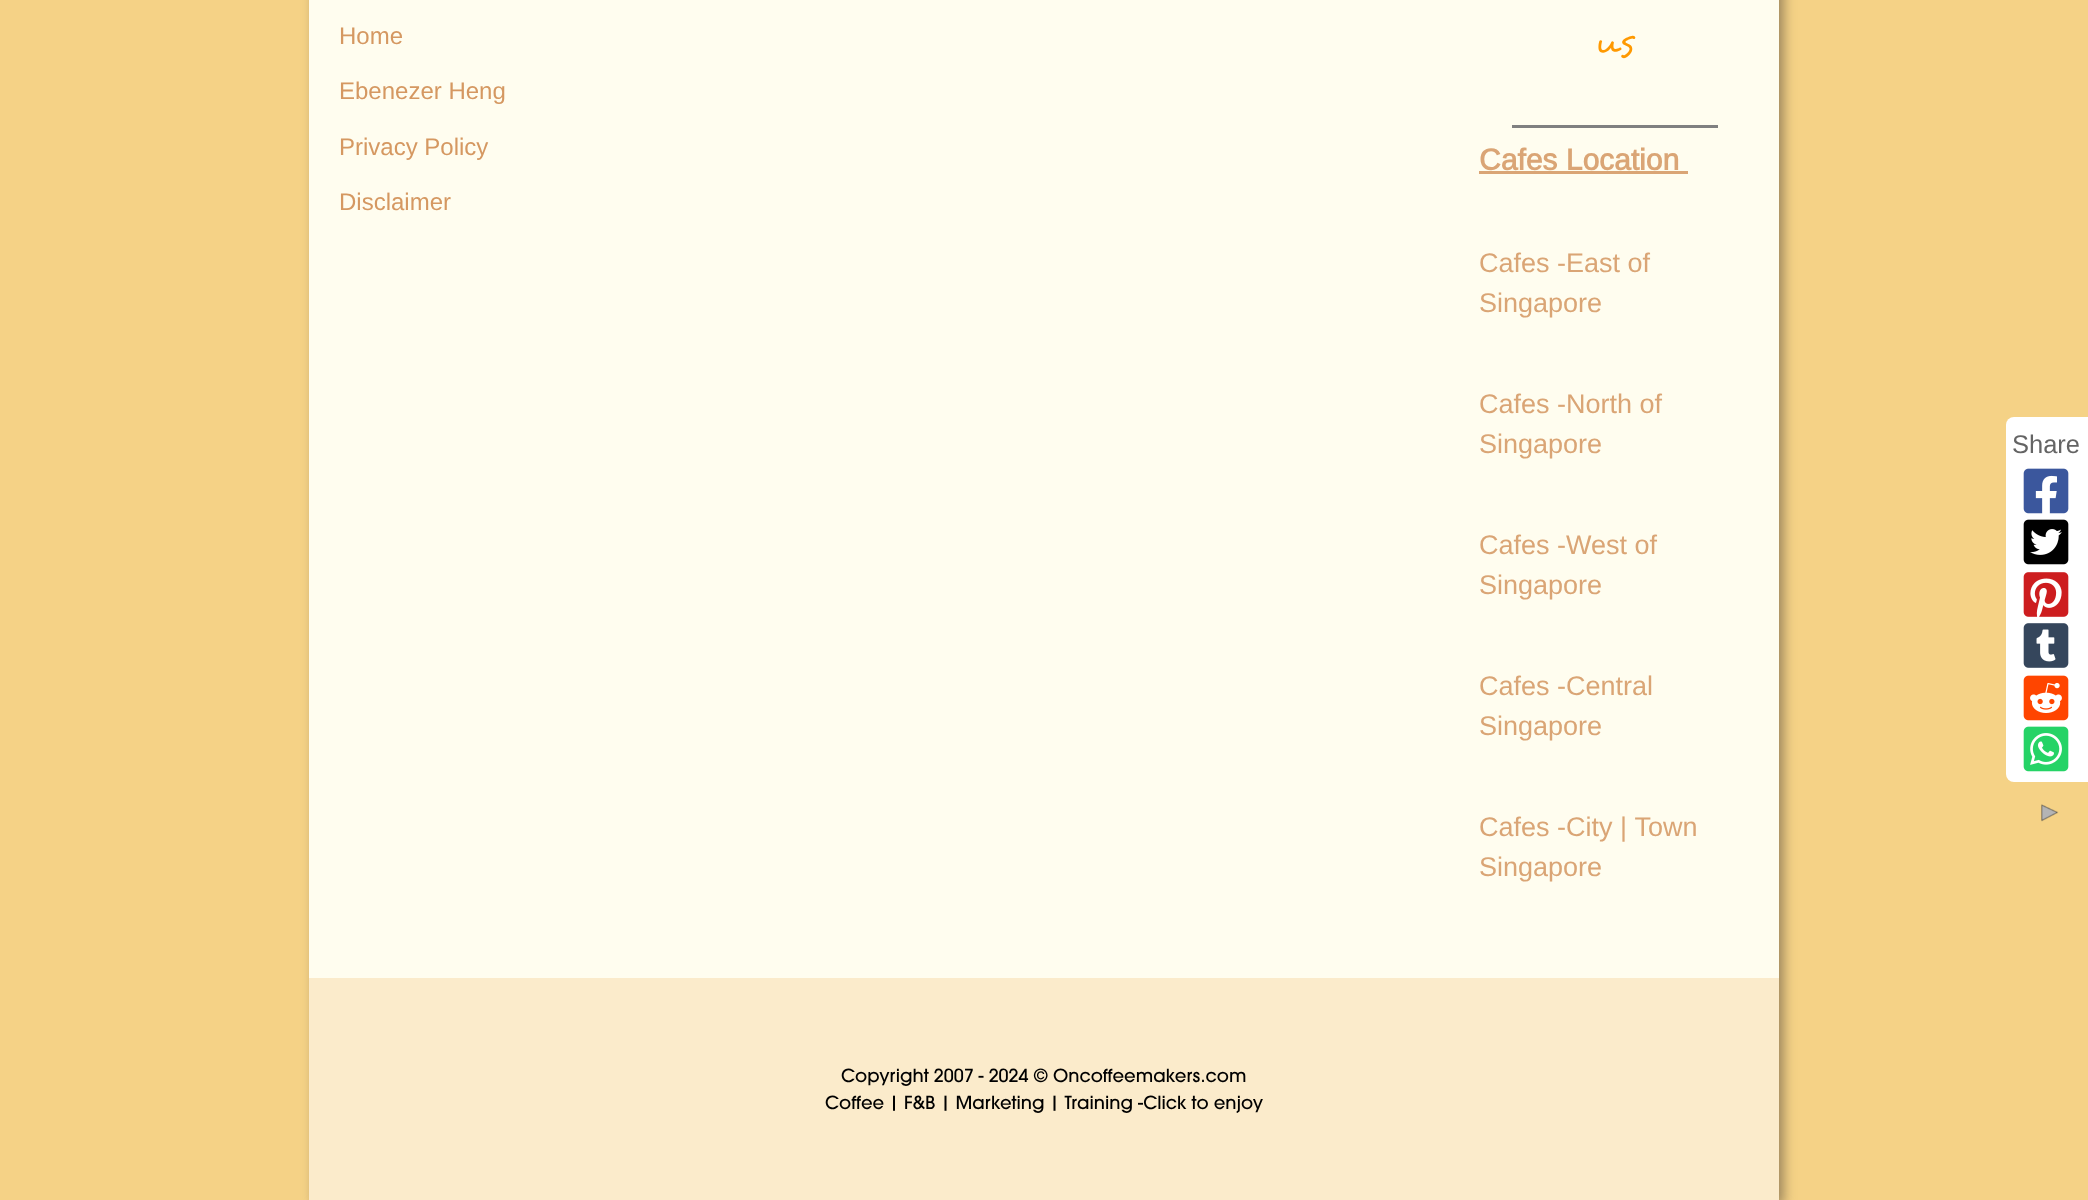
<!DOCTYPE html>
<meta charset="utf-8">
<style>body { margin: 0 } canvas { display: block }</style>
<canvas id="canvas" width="2088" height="1200"></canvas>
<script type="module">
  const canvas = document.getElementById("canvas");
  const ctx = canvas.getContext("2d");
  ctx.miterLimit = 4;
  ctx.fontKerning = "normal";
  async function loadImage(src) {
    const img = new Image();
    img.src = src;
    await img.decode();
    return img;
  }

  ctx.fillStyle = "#f5d286";
  ctx.fillRect(0, 0, 2088, 1200);
  ctx.fillStyle = "#9e875d";
  ctx.filter = "blur(6px)";
  ctx.beginPath();
  ctx.rect(314, -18, 1470, 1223);
  ctx.fill();
  ctx.filter = "none";
  ctx.fillStyle = "#fffdef";
  ctx.fillRect(309, 0, 1470, 978);
  ctx.font = "24px Arimo";
  ctx.fillStyle = "#d59861";
  ctx.fillText("Home", 339, 44);
  ctx.fillText("Ebenezer Heng", 339, 99);
  ctx.fillText("Privacy Policy", 339, 155);
  ctx.fillText("Disclaimer", 339, 210);
  ctx.font = "36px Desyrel";
  ctx.fillStyle = "#ff9900";
  ctx.fillText("us", 1595, 51);
  ctx.fillStyle = "#808080";
  ctx.fillRect(1512, 125, 206, 3);
  ctx.font = "bold 30px Arimo";
  ctx.fillStyle = "#daa575";
  ctx.fillText("Cafes Location", 1479, 170);
  ctx.fillRect(1479, 171, 209, 3);
  ctx.font = "27px Arimo";
  ctx.fillText("Cafes -East of", 1479, 272);
  ctx.fillText("Singapore", 1479, 312);
  ctx.fillText("Cafes -North of", 1479, 413);
  ctx.fillText("Singapore", 1479, 453);
  ctx.fillText("Cafes -West of", 1479, 554);
  ctx.fillText("Singapore", 1479, 594);
  ctx.fillText("Cafes -Central", 1479, 695);
  ctx.fillText("Singapore", 1479, 735);
  ctx.fillText("Cafes -City | Town", 1479, 836);
  ctx.fillText("Singapore", 1479, 876);
  ctx.fillStyle = "#ffffff";
  ctx.beginPath();
  ctx.roundRect(2006, 417, 82, 365, [8, 0, 0, 8]);
  ctx.fill();
  ctx.font = "25.5px Arimo";
  ctx.fillStyle = "#646464";
  ctx.fillText("Share", 2012, 453);
  ctx.drawImage(await loadImage("img1.png"), 2023, 468, 46, 46);
  ctx.drawImage(await loadImage("img2.png"), 2023, 519, 46, 46);
  ctx.drawImage(await loadImage("img3.png"), 2023, 572, 46, 45);
  ctx.drawImage(await loadImage("img4.png"), 2023, 623, 46, 45);
  ctx.drawImage(await loadImage("img5.png"), 2023, 675, 46, 46);
  ctx.drawImage(await loadImage("img6.png"), 2023, 726, 46, 46);
  ctx.drawImage(await loadImage("img7.png"), 2041, 804, 18, 18);
  ctx.fillStyle = "#fbebcb";
  ctx.fillRect(309, 978, 1470, 222);
  ctx.font = "18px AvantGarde";
  ctx.fillStyle = "#000000";
  ctx.fillText("Copyright 2007 - 2024 © Oncoffeemakers.com", 841, 1082);
  ctx.fillText("Coffee | F&B | Marketing | Training -Click to enjoy", 825, 1109);
</script>
